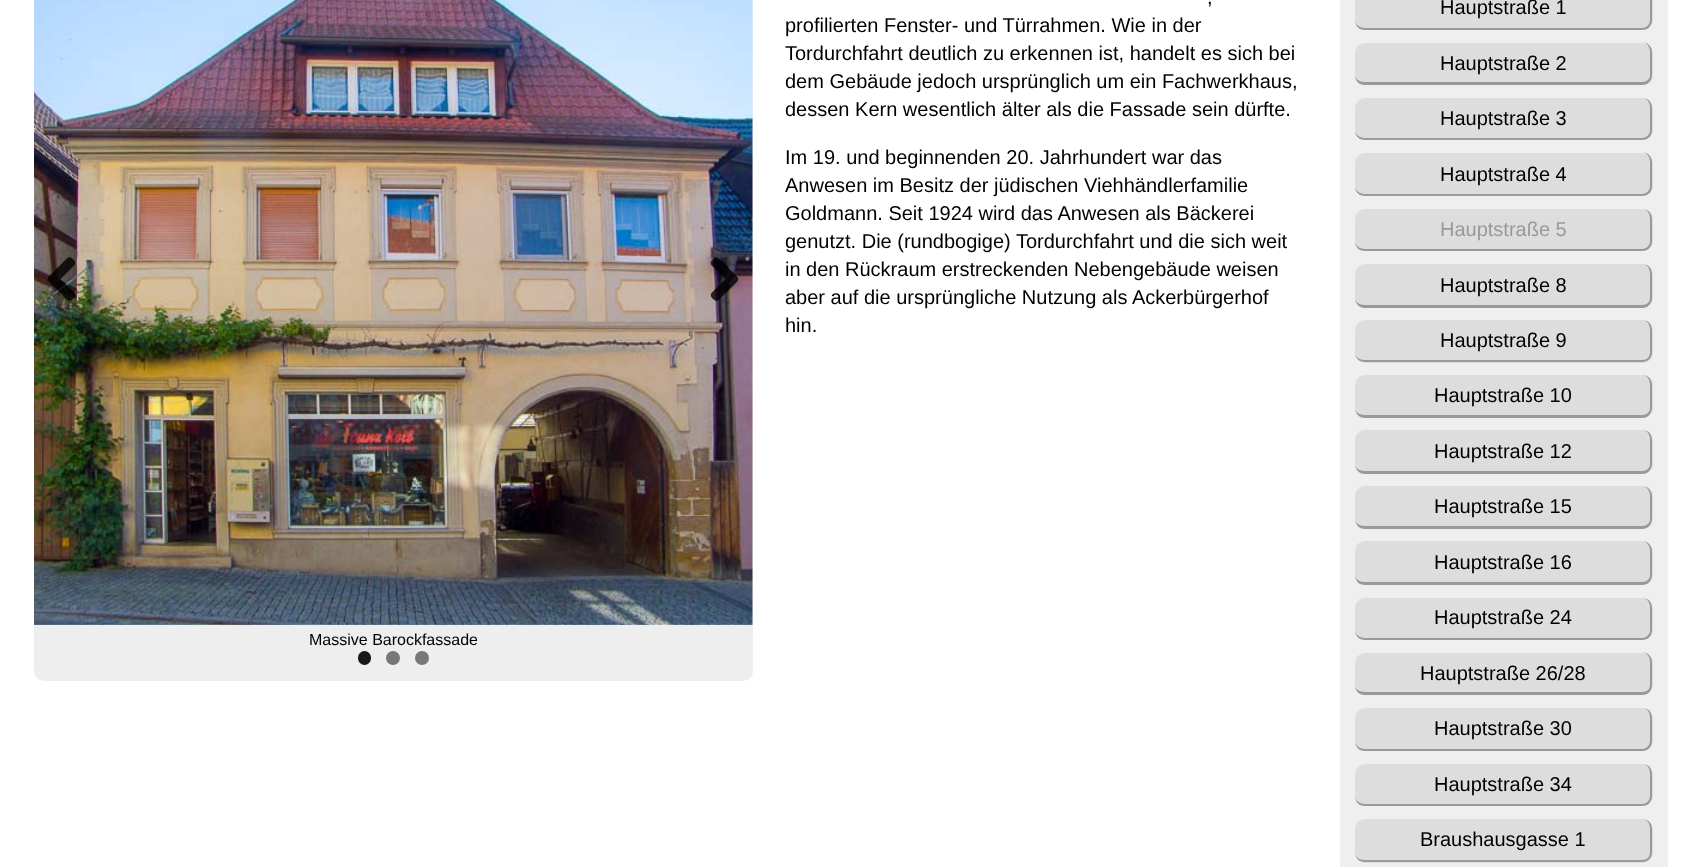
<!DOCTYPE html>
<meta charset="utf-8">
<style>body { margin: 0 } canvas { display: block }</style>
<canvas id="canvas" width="1701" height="867"></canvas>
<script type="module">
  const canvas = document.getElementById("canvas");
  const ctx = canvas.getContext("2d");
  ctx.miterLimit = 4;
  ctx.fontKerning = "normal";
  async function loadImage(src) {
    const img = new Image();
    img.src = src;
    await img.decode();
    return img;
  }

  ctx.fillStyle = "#ffffff";
  ctx.fillRect(0, 0, 1701, 867);
  ctx.font = "20px Liberation Sans";
  ctx.fillStyle = "#000000";
  ctx.fillText(",", 1207, 4);
  ctx.fillText("profilierten Fenster- und Türrahmen. Wie in der", 785, 32);
  ctx.fillText("Tordurchfahrt deutlich zu erkennen ist, handelt es sich bei", 785, 60);
  ctx.fillText("dem Gebäude jedoch ursprünglich um ein Fachwerkhaus,", 785, 88);
  ctx.fillText("dessen Kern wesentlich älter als die Fassade sein dürfte.", 785, 116);
  ctx.fillText("Im 19. und beginnenden 20. Jahrhundert war das", 785, 164);
  ctx.fillText("Anwesen im Besitz der jüdischen Viehhändlerfamilie", 785, 192);
  ctx.fillText("Goldmann. Seit 1924 wird das Anwesen als Bäckerei", 785, 220);
  ctx.fillText("genutzt. Die (rundbogige) Tordurchfahrt und die sich weit", 785, 248);
  ctx.fillText("in den Rückraum erstreckenden Nebengebäude weisen", 785, 276);
  ctx.fillText("aber auf die ursprüngliche Nutzung als Ackerbürgerhof", 785, 304);
  ctx.fillText("hin.", 785, 332);
  ctx.fillStyle = "#eeeeee";
  ctx.beginPath();
  ctx.roundRect(34, -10, 719, 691, 10);
  ctx.fill();
  ctx.drawImage(await loadImage("img3.png"), 34, 0, 719, 625);
  ctx.drawImage(await loadImage("img1.png"), 47, 257, 29, 44);
  ctx.drawImage(await loadImage("img2.png"), 710, 257, 29, 44);
  ctx.font = "16px Liberation Sans";
  ctx.fillStyle = "#000000";
  ctx.fillText("Massive Barockfassade", 309, 645);
  ctx.fillStyle = "#181818";
  ctx.beginPath();
  ctx.roundRect(358, 651, 13, 14, 6.5);
  ctx.fill();
  ctx.fillStyle = "#777777";
  ctx.beginPath();
  ctx.arc(393, 658, 7, 0, Math.PI * 2);
  ctx.fill();
  ctx.beginPath();
  ctx.arc(422, 658, 7, 0, Math.PI * 2);
  ctx.fill();
  ctx.fillStyle = "#efefef";
  ctx.fillRect(1340, 0, 328, 867);
  ctx.fillStyle = "#dddddd";
  ctx.beginPath();
  ctx.roundRect(1355, -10, 298, 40, 10);
  ctx.fill();
  ctx.fillStyle = "#999999";
  ctx.beginPath();
  ctx.moveTo(1365, -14);
  ctx.lineTo(1642, -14);
  ctx.bezierCurveTo(1648, -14, 1652, -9, 1652, -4);
  ctx.lineTo(1652, 20);
  ctx.bezierCurveTo(1652, 26, 1648, 30, 1642, 30);
  ctx.lineTo(1365, 30);
  ctx.bezierCurveTo(1359, 30, 1355, 26, 1355, 20);
  ctx.lineTo(1355, -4);
  ctx.bezierCurveTo(1355, -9, 1359, -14, 1365, -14);
  ctx.closePath();
  ctx.moveTo(1365, -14);
  ctx.lineTo(1642, -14);
  ctx.bezierCurveTo(1647, -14, 1650, -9, 1650, -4);
  ctx.lineTo(1650, 20);
  ctx.bezierCurveTo(1650, 24, 1647, 28, 1642, 28);
  ctx.lineTo(1365, 28);
  ctx.bezierCurveTo(1359, 28, 1355, 24, 1355, 20);
  ctx.lineTo(1355, -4);
  ctx.bezierCurveTo(1355, -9, 1359, -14, 1365, -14);
  ctx.closePath();
  ctx.fill("evenodd");
  ctx.font = "20px Liberation Sans";
  ctx.fillStyle = "#000000";
  ctx.fillText("Hauptstraße 1", 1440, 14);
  ctx.fillStyle = "#dddddd";
  ctx.beginPath();
  ctx.roundRect(1355, 43, 298, 42, 10);
  ctx.fill();
  ctx.fillStyle = "#999999";
  ctx.beginPath();
  ctx.moveTo(1365, 42);
  ctx.lineTo(1642, 42);
  ctx.bezierCurveTo(1648, 42, 1652, 47, 1652, 52);
  ctx.lineTo(1652, 75);
  ctx.bezierCurveTo(1652, 81, 1648, 85, 1642, 85);
  ctx.lineTo(1365, 85);
  ctx.bezierCurveTo(1359, 85, 1355, 81, 1355, 75);
  ctx.lineTo(1355, 52);
  ctx.bezierCurveTo(1355, 47, 1359, 42, 1365, 42);
  ctx.closePath();
  ctx.moveTo(1365, 42);
  ctx.lineTo(1642, 42);
  ctx.bezierCurveTo(1647, 42, 1650, 47, 1650, 52);
  ctx.lineTo(1650, 75);
  ctx.bezierCurveTo(1650, 79, 1647, 82, 1642, 82);
  ctx.lineTo(1365, 82);
  ctx.bezierCurveTo(1359, 82, 1355, 79, 1355, 75);
  ctx.lineTo(1355, 52);
  ctx.bezierCurveTo(1355, 47, 1359, 42, 1365, 42);
  ctx.closePath();
  ctx.fill("evenodd");
  ctx.fillStyle = "#000000";
  ctx.fillText("Hauptstraße 2", 1440, 70);
  ctx.fillStyle = "#dddddd";
  ctx.beginPath();
  ctx.roundRect(1355, 98, 298, 42, 10);
  ctx.fill();
  ctx.fillStyle = "#999999";
  ctx.beginPath();
  ctx.moveTo(1365, 98);
  ctx.lineTo(1642, 98);
  ctx.bezierCurveTo(1648, 98, 1652, 102, 1652, 108);
  ctx.lineTo(1652, 130);
  ctx.bezierCurveTo(1652, 136, 1648, 140, 1642, 140);
  ctx.lineTo(1365, 140);
  ctx.bezierCurveTo(1359, 140, 1355, 136, 1355, 130);
  ctx.lineTo(1355, 108);
  ctx.bezierCurveTo(1355, 102, 1359, 98, 1365, 98);
  ctx.closePath();
  ctx.moveTo(1365, 98);
  ctx.lineTo(1642, 98);
  ctx.bezierCurveTo(1647, 98, 1650, 102, 1650, 108);
  ctx.lineTo(1650, 130);
  ctx.bezierCurveTo(1650, 134, 1647, 138, 1642, 138);
  ctx.lineTo(1365, 138);
  ctx.bezierCurveTo(1359, 138, 1355, 134, 1355, 130);
  ctx.lineTo(1355, 108);
  ctx.bezierCurveTo(1355, 102, 1359, 98, 1365, 98);
  ctx.closePath();
  ctx.fill("evenodd");
  ctx.fillStyle = "#000000";
  ctx.fillText("Hauptstraße 3", 1440, 125);
  ctx.fillStyle = "#dddddd";
  ctx.beginPath();
  ctx.roundRect(1355, 153, 298, 43, 10);
  ctx.fill();
  ctx.fillStyle = "#999999";
  ctx.beginPath();
  ctx.moveTo(1365, 152);
  ctx.lineTo(1642, 152);
  ctx.bezierCurveTo(1648, 152, 1652, 157, 1652, 162);
  ctx.lineTo(1652, 186);
  ctx.bezierCurveTo(1652, 192, 1648, 196, 1642, 196);
  ctx.lineTo(1365, 196);
  ctx.bezierCurveTo(1359, 196, 1355, 192, 1355, 186);
  ctx.lineTo(1355, 162);
  ctx.bezierCurveTo(1355, 157, 1359, 152, 1365, 152);
  ctx.closePath();
  ctx.moveTo(1365, 152);
  ctx.lineTo(1642, 152);
  ctx.bezierCurveTo(1647, 152, 1650, 157, 1650, 162);
  ctx.lineTo(1650, 186);
  ctx.bezierCurveTo(1650, 190, 1647, 194, 1642, 194);
  ctx.lineTo(1365, 194);
  ctx.bezierCurveTo(1359, 194, 1355, 190, 1355, 186);
  ctx.lineTo(1355, 162);
  ctx.bezierCurveTo(1355, 157, 1359, 152, 1365, 152);
  ctx.closePath();
  ctx.fill("evenodd");
  ctx.fillStyle = "#000000";
  ctx.fillText("Hauptstraße 4", 1440, 181);
  ctx.fillStyle = "#dddddd";
  ctx.beginPath();
  ctx.roundRect(1355, 209, 298, 42, 10);
  ctx.fill();
  ctx.fillStyle = "#999999";
  ctx.beginPath();
  ctx.moveTo(1365, 209);
  ctx.lineTo(1642, 209);
  ctx.bezierCurveTo(1648, 209, 1652, 213, 1652, 219);
  ctx.lineTo(1652, 241);
  ctx.bezierCurveTo(1652, 247, 1648, 251, 1642, 251);
  ctx.lineTo(1365, 251);
  ctx.bezierCurveTo(1359, 251, 1355, 247, 1355, 241);
  ctx.lineTo(1355, 219);
  ctx.bezierCurveTo(1355, 213, 1359, 209, 1365, 209);
  ctx.closePath();
  ctx.moveTo(1365, 209);
  ctx.lineTo(1642, 209);
  ctx.bezierCurveTo(1647, 209, 1650, 213, 1650, 219);
  ctx.lineTo(1650, 241);
  ctx.bezierCurveTo(1650, 245, 1647, 249, 1642, 249);
  ctx.lineTo(1365, 249);
  ctx.bezierCurveTo(1359, 249, 1355, 245, 1355, 241);
  ctx.lineTo(1355, 219);
  ctx.bezierCurveTo(1355, 213, 1359, 209, 1365, 209);
  ctx.closePath();
  ctx.fill("evenodd");
  ctx.fillText("Hauptstraße 5", 1440, 236);
  ctx.fillStyle = "#dddddd";
  ctx.beginPath();
  ctx.roundRect(1355, 264, 298, 44, 10);
  ctx.fill();
  ctx.fillStyle = "#999999";
  ctx.beginPath();
  ctx.moveTo(1365, 264);
  ctx.lineTo(1642, 264);
  ctx.bezierCurveTo(1648, 264, 1652, 268, 1652, 274);
  ctx.lineTo(1652, 298);
  ctx.bezierCurveTo(1652, 303, 1648, 308, 1642, 308);
  ctx.lineTo(1365, 308);
  ctx.bezierCurveTo(1359, 308, 1355, 303, 1355, 298);
  ctx.lineTo(1355, 274);
  ctx.bezierCurveTo(1355, 268, 1359, 264, 1365, 264);
  ctx.closePath();
  ctx.moveTo(1365, 264);
  ctx.lineTo(1642, 264);
  ctx.bezierCurveTo(1647, 264, 1650, 268, 1650, 274);
  ctx.lineTo(1650, 298);
  ctx.bezierCurveTo(1650, 302, 1647, 305, 1642, 305);
  ctx.lineTo(1365, 305);
  ctx.bezierCurveTo(1359, 305, 1355, 302, 1355, 298);
  ctx.lineTo(1355, 274);
  ctx.bezierCurveTo(1355, 268, 1359, 264, 1365, 264);
  ctx.closePath();
  ctx.fill("evenodd");
  ctx.fillStyle = "#000000";
  ctx.fillText("Hauptstraße 8", 1440, 292);
  ctx.fillStyle = "#dddddd";
  ctx.beginPath();
  ctx.roundRect(1355, 320, 298, 43, 10);
  ctx.fill();
  ctx.fillStyle = "#999999";
  ctx.beginPath();
  ctx.moveTo(1365, 320);
  ctx.lineTo(1642, 320);
  ctx.bezierCurveTo(1648, 320, 1652, 324, 1652, 330);
  ctx.lineTo(1652, 352);
  ctx.bezierCurveTo(1652, 358, 1648, 362, 1642, 362);
  ctx.lineTo(1365, 362);
  ctx.bezierCurveTo(1359, 362, 1355, 358, 1355, 352);
  ctx.lineTo(1355, 330);
  ctx.bezierCurveTo(1355, 324, 1359, 320, 1365, 320);
  ctx.closePath();
  ctx.moveTo(1365, 320);
  ctx.lineTo(1642, 320);
  ctx.bezierCurveTo(1647, 320, 1650, 324, 1650, 330);
  ctx.lineTo(1650, 352);
  ctx.bezierCurveTo(1650, 357, 1647, 360, 1642, 360);
  ctx.lineTo(1365, 360);
  ctx.bezierCurveTo(1359, 360, 1355, 357, 1355, 352);
  ctx.lineTo(1355, 330);
  ctx.bezierCurveTo(1355, 324, 1359, 320, 1365, 320);
  ctx.closePath();
  ctx.fill("evenodd");
  ctx.fillStyle = "#000000";
  ctx.fillText("Hauptstraße 9", 1440, 347);
  ctx.fillStyle = "#dddddd";
  ctx.beginPath();
  ctx.roundRect(1355, 375, 298, 43, 10);
  ctx.fill();
  ctx.fillStyle = "#999999";
  ctx.beginPath();
  ctx.moveTo(1365, 375);
  ctx.lineTo(1642, 375);
  ctx.bezierCurveTo(1648, 375, 1652, 379, 1652, 385);
  ctx.lineTo(1652, 408);
  ctx.bezierCurveTo(1652, 413, 1648, 418, 1642, 418);
  ctx.lineTo(1365, 418);
  ctx.bezierCurveTo(1359, 418, 1355, 413, 1355, 408);
  ctx.lineTo(1355, 385);
  ctx.bezierCurveTo(1355, 379, 1359, 375, 1365, 375);
  ctx.closePath();
  ctx.moveTo(1365, 375);
  ctx.lineTo(1642, 375);
  ctx.bezierCurveTo(1647, 375, 1650, 379, 1650, 385);
  ctx.lineTo(1650, 408);
  ctx.bezierCurveTo(1650, 412, 1647, 415, 1642, 415);
  ctx.lineTo(1365, 415);
  ctx.bezierCurveTo(1359, 415, 1355, 412, 1355, 408);
  ctx.lineTo(1355, 385);
  ctx.bezierCurveTo(1355, 379, 1359, 375, 1365, 375);
  ctx.closePath();
  ctx.fill("evenodd");
  ctx.fillStyle = "#000000";
  ctx.fillText("Hauptstraße 10", 1434, 402);
  ctx.fillStyle = "#dddddd";
  ctx.beginPath();
  ctx.roundRect(1355, 430, 298, 44, 10);
  ctx.fill();
  ctx.fillStyle = "#999999";
  ctx.beginPath();
  ctx.moveTo(1365, 430);
  ctx.lineTo(1642, 430);
  ctx.bezierCurveTo(1648, 430, 1652, 434, 1652, 440);
  ctx.lineTo(1652, 464);
  ctx.bezierCurveTo(1652, 469, 1648, 474, 1642, 474);
  ctx.lineTo(1365, 474);
  ctx.bezierCurveTo(1359, 474, 1355, 469, 1355, 464);
  ctx.lineTo(1355, 440);
  ctx.bezierCurveTo(1355, 434, 1359, 430, 1365, 430);
  ctx.closePath();
  ctx.moveTo(1365, 430);
  ctx.lineTo(1642, 430);
  ctx.bezierCurveTo(1647, 430, 1650, 434, 1650, 440);
  ctx.lineTo(1650, 464);
  ctx.bezierCurveTo(1650, 468, 1647, 471, 1642, 471);
  ctx.lineTo(1365, 471);
  ctx.bezierCurveTo(1359, 471, 1355, 468, 1355, 464);
  ctx.lineTo(1355, 440);
  ctx.bezierCurveTo(1355, 434, 1359, 430, 1365, 430);
  ctx.closePath();
  ctx.fill("evenodd");
  ctx.fillStyle = "#000000";
  ctx.fillText("Hauptstraße 12", 1434, 458);
  ctx.fillStyle = "#dddddd";
  ctx.beginPath();
  ctx.roundRect(1355, 486, 298, 43, 10);
  ctx.fill();
  ctx.fillStyle = "#999999";
  ctx.beginPath();
  ctx.moveTo(1365, 486);
  ctx.lineTo(1642, 486);
  ctx.bezierCurveTo(1648, 486, 1652, 491, 1652, 496);
  ctx.lineTo(1652, 519);
  ctx.bezierCurveTo(1652, 524, 1648, 529, 1642, 529);
  ctx.lineTo(1365, 529);
  ctx.bezierCurveTo(1359, 529, 1355, 524, 1355, 519);
  ctx.lineTo(1355, 496);
  ctx.bezierCurveTo(1355, 491, 1359, 486, 1365, 486);
  ctx.closePath();
  ctx.moveTo(1365, 486);
  ctx.lineTo(1642, 486);
  ctx.bezierCurveTo(1647, 486, 1650, 491, 1650, 496);
  ctx.lineTo(1650, 519);
  ctx.bezierCurveTo(1650, 523, 1647, 526, 1642, 526);
  ctx.lineTo(1365, 526);
  ctx.bezierCurveTo(1359, 526, 1355, 523, 1355, 519);
  ctx.lineTo(1355, 496);
  ctx.bezierCurveTo(1355, 491, 1359, 486, 1365, 486);
  ctx.closePath();
  ctx.fill("evenodd");
  ctx.fillStyle = "#000000";
  ctx.fillText("Hauptstraße 15", 1434, 513);
  ctx.fillStyle = "#dddddd";
  ctx.beginPath();
  ctx.roundRect(1355, 541, 298, 44, 10);
  ctx.fill();
  ctx.fillStyle = "#999999";
  ctx.beginPath();
  ctx.moveTo(1365, 541);
  ctx.lineTo(1642, 541);
  ctx.bezierCurveTo(1648, 541, 1652, 546, 1652, 551);
  ctx.lineTo(1652, 575);
  ctx.bezierCurveTo(1652, 581, 1648, 585, 1642, 585);
  ctx.lineTo(1365, 585);
  ctx.bezierCurveTo(1359, 585, 1355, 581, 1355, 575);
  ctx.lineTo(1355, 551);
  ctx.bezierCurveTo(1355, 546, 1359, 541, 1365, 541);
  ctx.closePath();
  ctx.moveTo(1365, 541);
  ctx.lineTo(1642, 541);
  ctx.bezierCurveTo(1647, 541, 1650, 546, 1650, 551);
  ctx.lineTo(1650, 575);
  ctx.bezierCurveTo(1650, 579, 1647, 582, 1642, 582);
  ctx.lineTo(1365, 582);
  ctx.bezierCurveTo(1359, 582, 1355, 579, 1355, 575);
  ctx.lineTo(1355, 551);
  ctx.bezierCurveTo(1355, 546, 1359, 541, 1365, 541);
  ctx.closePath();
  ctx.fill("evenodd");
  ctx.fillStyle = "#000000";
  ctx.fillText("Hauptstraße 16", 1434, 569);
  ctx.fillStyle = "#dddddd";
  ctx.beginPath();
  ctx.roundRect(1355, 598, 298, 42, 10);
  ctx.fill();
  ctx.fillStyle = "#999999";
  ctx.beginPath();
  ctx.moveTo(1365, 598);
  ctx.lineTo(1642, 598);
  ctx.bezierCurveTo(1648, 598, 1652, 602, 1652, 608);
  ctx.lineTo(1652, 630);
  ctx.bezierCurveTo(1652, 636, 1648, 640, 1642, 640);
  ctx.lineTo(1365, 640);
  ctx.bezierCurveTo(1359, 640, 1355, 636, 1355, 630);
  ctx.lineTo(1355, 608);
  ctx.bezierCurveTo(1355, 602, 1359, 598, 1365, 598);
  ctx.closePath();
  ctx.moveTo(1365, 598);
  ctx.lineTo(1642, 598);
  ctx.bezierCurveTo(1647, 598, 1650, 602, 1650, 608);
  ctx.lineTo(1650, 630);
  ctx.bezierCurveTo(1650, 634, 1647, 638, 1642, 638);
  ctx.lineTo(1365, 638);
  ctx.bezierCurveTo(1359, 638, 1355, 634, 1355, 630);
  ctx.lineTo(1355, 608);
  ctx.bezierCurveTo(1355, 602, 1359, 598, 1365, 598);
  ctx.closePath();
  ctx.fill("evenodd");
  ctx.fillStyle = "#000000";
  ctx.fillText("Hauptstraße 24", 1434, 624);
  ctx.fillStyle = "#dddddd";
  ctx.beginPath();
  ctx.roundRect(1355, 653, 298, 42, 10);
  ctx.fill();
  ctx.fillStyle = "#999999";
  ctx.beginPath();
  ctx.moveTo(1365, 652);
  ctx.lineTo(1642, 652);
  ctx.bezierCurveTo(1648, 652, 1652, 657, 1652, 662);
  ctx.lineTo(1652, 685);
  ctx.bezierCurveTo(1652, 691, 1648, 695, 1642, 695);
  ctx.lineTo(1365, 695);
  ctx.bezierCurveTo(1359, 695, 1355, 691, 1355, 685);
  ctx.lineTo(1355, 662);
  ctx.bezierCurveTo(1355, 657, 1359, 652, 1365, 652);
  ctx.closePath();
  ctx.moveTo(1365, 652);
  ctx.lineTo(1642, 652);
  ctx.bezierCurveTo(1647, 652, 1650, 657, 1650, 662);
  ctx.lineTo(1650, 685);
  ctx.bezierCurveTo(1650, 689, 1647, 692, 1642, 692);
  ctx.lineTo(1365, 692);
  ctx.bezierCurveTo(1359, 692, 1355, 689, 1355, 685);
  ctx.lineTo(1355, 662);
  ctx.bezierCurveTo(1355, 657, 1359, 652, 1365, 652);
  ctx.closePath();
  ctx.fill("evenodd");
  ctx.fillStyle = "#000000";
  ctx.fillText("Hauptstraße 26/28", 1420, 680);
  ctx.fillStyle = "#dddddd";
  ctx.beginPath();
  ctx.roundRect(1355, 708, 298, 43, 10);
  ctx.fill();
  ctx.fillStyle = "#999999";
  ctx.beginPath();
  ctx.moveTo(1365, 708);
  ctx.lineTo(1642, 708);
  ctx.bezierCurveTo(1648, 708, 1652, 712, 1652, 718);
  ctx.lineTo(1652, 741);
  ctx.bezierCurveTo(1652, 747, 1648, 751, 1642, 751);
  ctx.lineTo(1365, 751);
  ctx.bezierCurveTo(1359, 751, 1355, 747, 1355, 741);
  ctx.lineTo(1355, 718);
  ctx.bezierCurveTo(1355, 712, 1359, 708, 1365, 708);
  ctx.closePath();
  ctx.moveTo(1365, 708);
  ctx.lineTo(1642, 708);
  ctx.bezierCurveTo(1647, 708, 1650, 712, 1650, 718);
  ctx.lineTo(1650, 741);
  ctx.bezierCurveTo(1650, 745, 1647, 749, 1642, 749);
  ctx.lineTo(1365, 749);
  ctx.bezierCurveTo(1359, 749, 1355, 745, 1355, 741);
  ctx.lineTo(1355, 718);
  ctx.bezierCurveTo(1355, 712, 1359, 708, 1365, 708);
  ctx.closePath();
  ctx.fill("evenodd");
  ctx.fillStyle = "#000000";
  ctx.fillText("Hauptstraße 30", 1434, 735);
  ctx.fillStyle = "#dddddd";
  ctx.beginPath();
  ctx.roundRect(1355, 764, 298, 42, 10);
  ctx.fill();
  ctx.fillStyle = "#999999";
  ctx.beginPath();
  ctx.moveTo(1365, 764);
  ctx.lineTo(1642, 764);
  ctx.bezierCurveTo(1648, 764, 1652, 768, 1652, 774);
  ctx.lineTo(1652, 796);
  ctx.bezierCurveTo(1652, 802, 1648, 806, 1642, 806);
  ctx.lineTo(1365, 806);
  ctx.bezierCurveTo(1359, 806, 1355, 802, 1355, 796);
  ctx.lineTo(1355, 774);
  ctx.bezierCurveTo(1355, 768, 1359, 764, 1365, 764);
  ctx.closePath();
  ctx.moveTo(1365, 764);
  ctx.lineTo(1642, 764);
  ctx.bezierCurveTo(1647, 764, 1650, 768, 1650, 774);
  ctx.lineTo(1650, 796);
  ctx.bezierCurveTo(1650, 800, 1647, 804, 1642, 804);
  ctx.lineTo(1365, 804);
  ctx.bezierCurveTo(1359, 804, 1355, 800, 1355, 796);
  ctx.lineTo(1355, 774);
  ctx.bezierCurveTo(1355, 768, 1359, 764, 1365, 764);
  ctx.closePath();
  ctx.fill("evenodd");
  ctx.fillStyle = "#000000";
  ctx.fillText("Hauptstraße 34", 1434, 791);
  ctx.fillStyle = "#dddddd";
  ctx.beginPath();
  ctx.roundRect(1355, 819, 298, 44, 10);
  ctx.fill();
  ctx.fillStyle = "#999999";
  ctx.beginPath();
  ctx.moveTo(1365, 819);
  ctx.lineTo(1642, 819);
  ctx.bezierCurveTo(1648, 819, 1652, 823, 1652, 829);
  ctx.lineTo(1652, 852);
  ctx.bezierCurveTo(1652, 858, 1648, 862, 1642, 862);
  ctx.lineTo(1365, 862);
  ctx.bezierCurveTo(1359, 862, 1355, 858, 1355, 852);
  ctx.lineTo(1355, 829);
  ctx.bezierCurveTo(1355, 823, 1359, 819, 1365, 819);
  ctx.closePath();
  ctx.moveTo(1365, 819);
  ctx.lineTo(1642, 819);
  ctx.bezierCurveTo(1647, 819, 1650, 823, 1650, 829);
  ctx.lineTo(1650, 852);
  ctx.bezierCurveTo(1650, 857, 1647, 860, 1642, 860);
  ctx.lineTo(1365, 860);
  ctx.bezierCurveTo(1359, 860, 1355, 857, 1355, 852);
  ctx.lineTo(1355, 829);
  ctx.bezierCurveTo(1355, 823, 1359, 819, 1365, 819);
  ctx.closePath();
  ctx.fill("evenodd");
  ctx.fillStyle = "#000000";
  ctx.fillText("Braushausgasse 1", 1420, 846);
</script>
